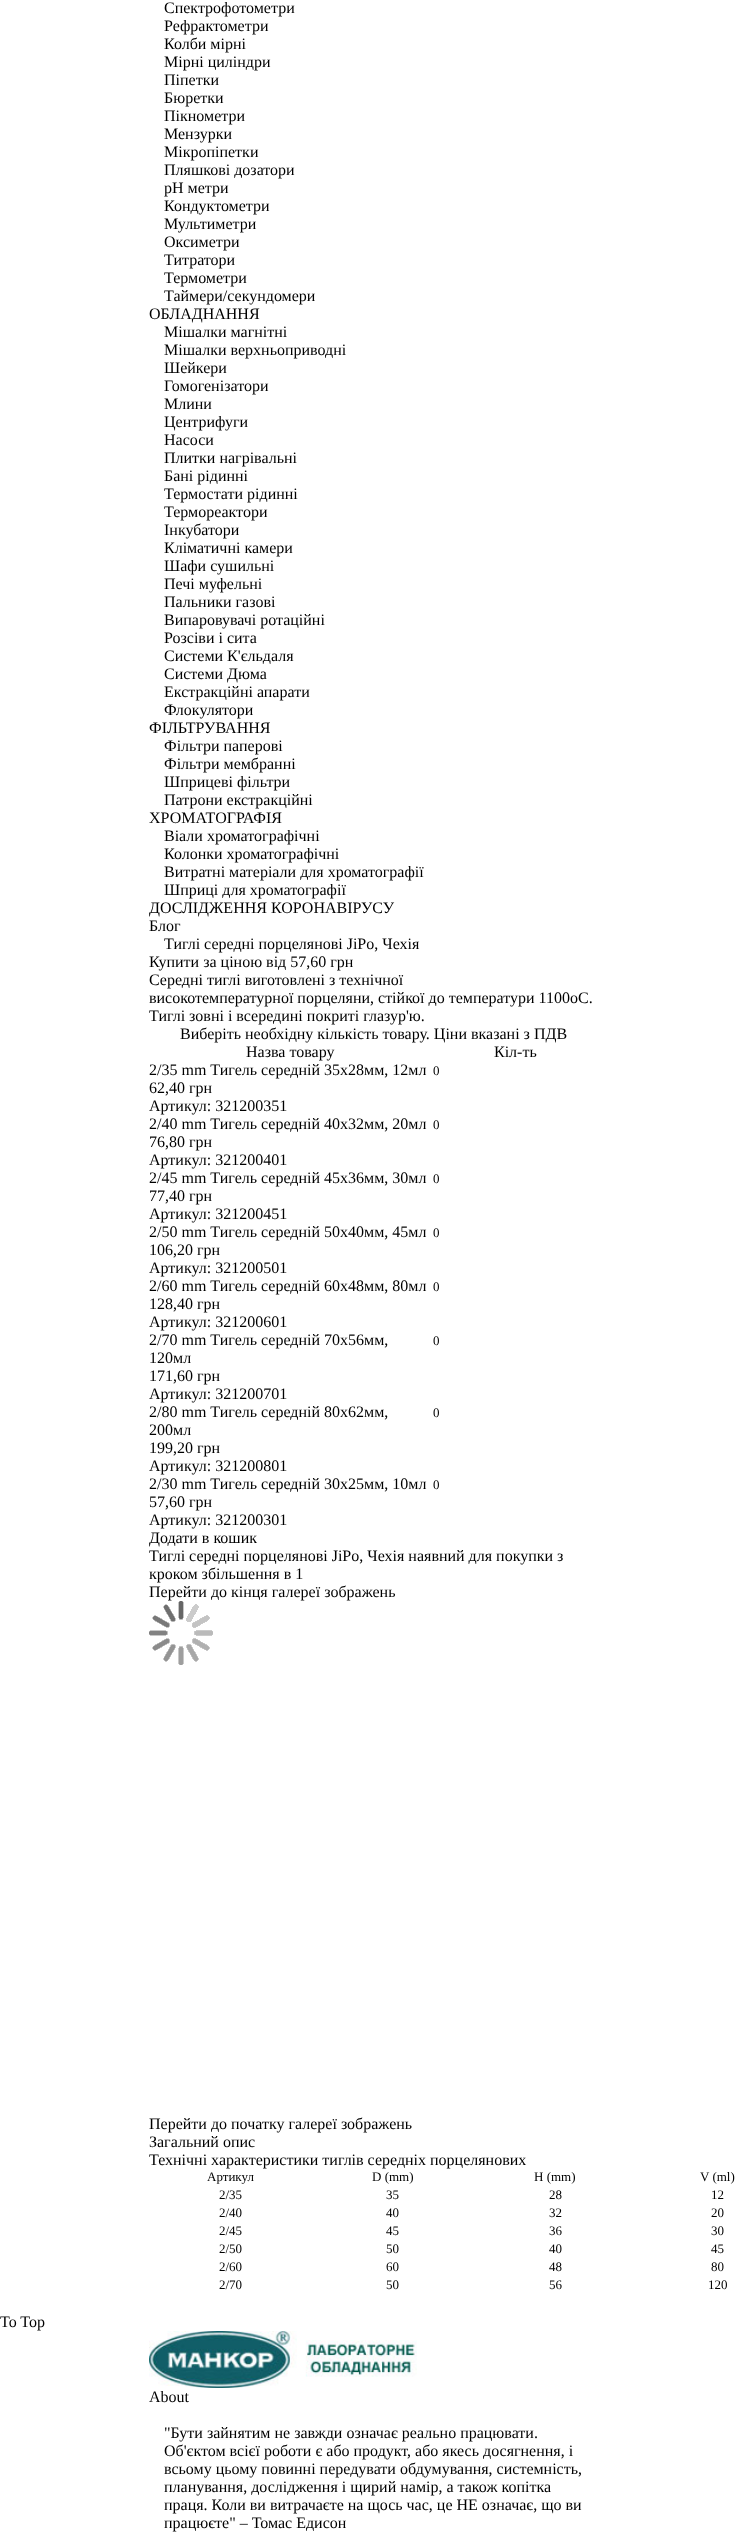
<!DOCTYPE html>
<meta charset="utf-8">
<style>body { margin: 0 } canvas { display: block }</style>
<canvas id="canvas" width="748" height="2536"></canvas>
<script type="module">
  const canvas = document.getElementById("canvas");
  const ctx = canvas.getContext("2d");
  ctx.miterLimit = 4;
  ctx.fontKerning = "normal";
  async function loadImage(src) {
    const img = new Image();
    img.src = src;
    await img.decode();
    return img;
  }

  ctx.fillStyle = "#ffffff";
  ctx.fillRect(0, 0, 748, 2536);
  ctx.font = "16px Liberation Serif";
  ctx.fillStyle = "#000000";
  ctx.fillText("Спектрофотометри", 164, 13);
  ctx.fillText("Рефрактометри", 164, 31);
  ctx.fillText("Колби мірні", 164, 49);
  ctx.fillText("Мірні циліндри", 164, 67);
  ctx.fillText("Піпетки", 164, 85);
  ctx.fillText("Бюретки", 164, 103);
  ctx.fillText("Пікнометри", 164, 121);
  ctx.fillText("Мензурки", 164, 139);
  ctx.fillText("Мікропіпетки", 164, 157);
  ctx.fillText("Пляшкові дозатори", 164, 175);
  ctx.fillText("рН метри", 164, 193);
  ctx.fillText("Кондуктометри", 164, 211);
  ctx.fillText("Мультиметри", 164, 229);
  ctx.fillText("Оксиметри", 164, 247);
  ctx.fillText("Титратори", 164, 265);
  ctx.fillText("Термометри", 164, 283);
  ctx.fillText("Таймери/секундомери", 164, 301);
  ctx.fillText("ОБЛАДНАННЯ", 149, 319);
  ctx.fillText("Мішалки магнітні", 164, 337);
  ctx.fillText("Мішалки верхньоприводні", 164, 355);
  ctx.fillText("Шейкери", 164, 373);
  ctx.fillText("Гомогенізатори", 164, 391);
  ctx.fillText("Млини", 164, 409);
  ctx.fillText("Центрифуги", 164, 427);
  ctx.fillText("Насоси", 164, 445);
  ctx.fillText("Плитки нагрівальні", 164, 463);
  ctx.fillText("Бані рідинні", 164, 481);
  ctx.fillText("Термостати рідинні", 164, 499);
  ctx.fillText("Термореактори", 164, 517);
  ctx.fillText("Інкубатори", 164, 535);
  ctx.fillText("Кліматичні камери", 164, 553);
  ctx.fillText("Шафи сушильні", 164, 571);
  ctx.fillText("Печі муфельні", 164, 589);
  ctx.fillText("Пальники газові", 164, 607);
  ctx.fillText("Випаровувачі ротаційні", 164, 625);
  ctx.fillText("Розсіви і сита", 164, 643);
  ctx.fillText("Системи К'єльдаля", 164, 661);
  ctx.fillText("Системи Дюма", 164, 679);
  ctx.fillText("Екстракційні апарати", 164, 697);
  ctx.fillText("Флокулятори", 164, 715);
  ctx.fillText("ФІЛЬТРУВАННЯ", 149, 733);
  ctx.fillText("Фільтри паперові", 164, 751);
  ctx.fillText("Фільтри мембранні", 164, 769);
  ctx.fillText("Шприцеві фільтри", 164, 787);
  ctx.fillText("Патрони екстракційні", 164, 805);
  ctx.fillText("ХРОМАТОГРАФІЯ", 149, 823);
  ctx.fillText("Віали хроматографічні", 164, 841);
  ctx.fillText("Колонки хроматографічні", 164, 859);
  ctx.fillText("Витратні матеріали для хроматографії", 164, 877);
  ctx.fillText("Шприці для хроматографії", 164, 895);
  ctx.fillText("ДОСЛІДЖЕННЯ КОРОНАВІРУСУ", 149, 913);
  ctx.fillText("Блог", 149, 931);
  ctx.fillText("Тиглі середні порцелянові JiPo, Чехія", 164, 949);
  ctx.fillText("Купити за ціною від 57,60 грн", 149, 967);
  ctx.fillText("Середні тиглі виготовлені з технічної", 149, 985);
  ctx.fillText("високотемпературної порцеляни, стійкої до температури 1100оС.", 149, 1003);
  ctx.fillText("Тиглі зовні і всередині покриті глазур'ю.", 149, 1021);
  ctx.fillText("Виберіть необхідну кількість товару. Ціни вказані з ПДВ", 180, 1039);
  ctx.fillText("Назва товару", 246, 1057);
  ctx.fillText("Кіл-ть", 494, 1057);
  ctx.fillText("2/35 mm Тигель середній 35х28мм, 12мл", 149, 1075);
  ctx.fillText("62,40 грн", 149, 1093);
  ctx.fillText("Артикул: 321200351", 149, 1111);
  ctx.font = "13px Liberation Serif";
  ctx.fillText("0", 433, 1075);
  ctx.font = "16px Liberation Serif";
  ctx.fillText("2/40 mm Тигель середній 40х32мм, 20мл", 149, 1129);
  ctx.fillText("76,80 грн", 149, 1147);
  ctx.fillText("Артикул: 321200401", 149, 1165);
  ctx.font = "13px Liberation Serif";
  ctx.fillText("0", 433, 1129);
  ctx.font = "16px Liberation Serif";
  ctx.fillText("2/45 mm Тигель середній 45х36мм, 30мл", 149, 1183);
  ctx.fillText("77,40 грн", 149, 1201);
  ctx.fillText("Артикул: 321200451", 149, 1219);
  ctx.font = "13px Liberation Serif";
  ctx.fillText("0", 433, 1183);
  ctx.font = "16px Liberation Serif";
  ctx.fillText("2/50 mm Тигель середній 50х40мм, 45мл", 149, 1237);
  ctx.fillText("106,20 грн", 149, 1255);
  ctx.fillText("Артикул: 321200501", 149, 1273);
  ctx.font = "13px Liberation Serif";
  ctx.fillText("0", 433, 1237);
  ctx.font = "16px Liberation Serif";
  ctx.fillText("2/60 mm Тигель середній 60х48мм, 80мл", 149, 1291);
  ctx.fillText("128,40 грн", 149, 1309);
  ctx.fillText("Артикул: 321200601", 149, 1327);
  ctx.font = "13px Liberation Serif";
  ctx.fillText("0", 433, 1291);
  ctx.font = "16px Liberation Serif";
  ctx.fillText("2/70 mm Тигель середній 70х56мм,", 149, 1345);
  ctx.fillText("120мл", 149, 1363);
  ctx.fillText("171,60 грн", 149, 1381);
  ctx.fillText("Артикул: 321200701", 149, 1399);
  ctx.font = "13px Liberation Serif";
  ctx.fillText("0", 433, 1345);
  ctx.font = "16px Liberation Serif";
  ctx.fillText("2/80 mm Тигель середній 80х62мм,", 149, 1417);
  ctx.fillText("200мл", 149, 1435);
  ctx.fillText("199,20 грн", 149, 1453);
  ctx.fillText("Артикул: 321200801", 149, 1471);
  ctx.font = "13px Liberation Serif";
  ctx.fillText("0", 433, 1417);
  ctx.font = "16px Liberation Serif";
  ctx.fillText("2/30 mm Тигель середній 30х25мм, 10мл", 149, 1489);
  ctx.fillText("57,60 грн", 149, 1507);
  ctx.fillText("Артикул: 321200301", 149, 1525);
  ctx.font = "13px Liberation Serif";
  ctx.fillText("0", 433, 1489);
  ctx.font = "16px Liberation Serif";
  ctx.fillText("Додати в кошик", 149, 1543);
  ctx.fillText("Тиглі середні порцелянові JiPo, Чехія наявний для покупки з", 149, 1561);
  ctx.fillText("кроком збільшення в 1", 149, 1579);
  ctx.fillText("Перейти до кінця галереї зображень", 149, 1597);
  ctx.drawImage(await loadImage("img1.png"), 149, 1601, 64, 64);
  ctx.fillText("Перейти до початку галереї зображень", 149, 2129);
  ctx.fillText("Загальний опис", 149, 2147);
  ctx.fillText("Технічні характеристики тиглів середніх порцелянових", 149, 2165);
  ctx.font = "13px Liberation Serif";
  ctx.fillText("Артикул", 207, 2181);
  ctx.fillText("D (mm)", 372, 2181);
  ctx.fillText("H (mm)", 534, 2181);
  ctx.fillText("V (ml)", 700, 2181);
  ctx.fillText("2/35", 219, 2199);
  ctx.fillText("35", 386, 2199);
  ctx.fillText("28", 549, 2199);
  ctx.fillText("12", 711, 2199);
  ctx.fillText("2/40", 219, 2217);
  ctx.fillText("40", 386, 2217);
  ctx.fillText("32", 549, 2217);
  ctx.fillText("20", 711, 2217);
  ctx.fillText("2/45", 219, 2235);
  ctx.fillText("45", 386, 2235);
  ctx.fillText("36", 549, 2235);
  ctx.fillText("30", 711, 2235);
  ctx.fillText("2/50", 219, 2253);
  ctx.fillText("50", 386, 2253);
  ctx.fillText("40", 549, 2253);
  ctx.fillText("45", 711, 2253);
  ctx.fillText("2/60", 219, 2271);
  ctx.fillText("60", 386, 2271);
  ctx.fillText("48", 549, 2271);
  ctx.fillText("80", 711, 2271);
  ctx.fillText("2/70", 219, 2289);
  ctx.fillText("50", 386, 2289);
  ctx.fillText("56", 549, 2289);
  ctx.fillText("120", 708, 2289);
  ctx.font = "16px Liberation Serif";
  ctx.fillText("To Top", 0, 2327);
  ctx.drawImage(await loadImage("img2.png"), 149, 2331, 268, 57);
  ctx.fillText("About", 149, 2402);
  ctx.fillText("\"Бути зайнятим не завжди означає реально працювати.", 164, 2438);
  ctx.fillText("Об'єктом всієї роботи є або продукт, або якесь досягнення, і", 164, 2456);
  ctx.fillText("всьому цьому повинні передувати обдумування, системність,", 164, 2474);
  ctx.fillText("планування, дослідження і щирий намір, а також копітка", 164, 2492);
  ctx.fillText("праця. Коли ви витрачаєте на щось час, це НЕ означає, що ви", 164, 2510);
  ctx.fillText("працюєте\" – Томас Едисон", 164, 2528);
</script>
